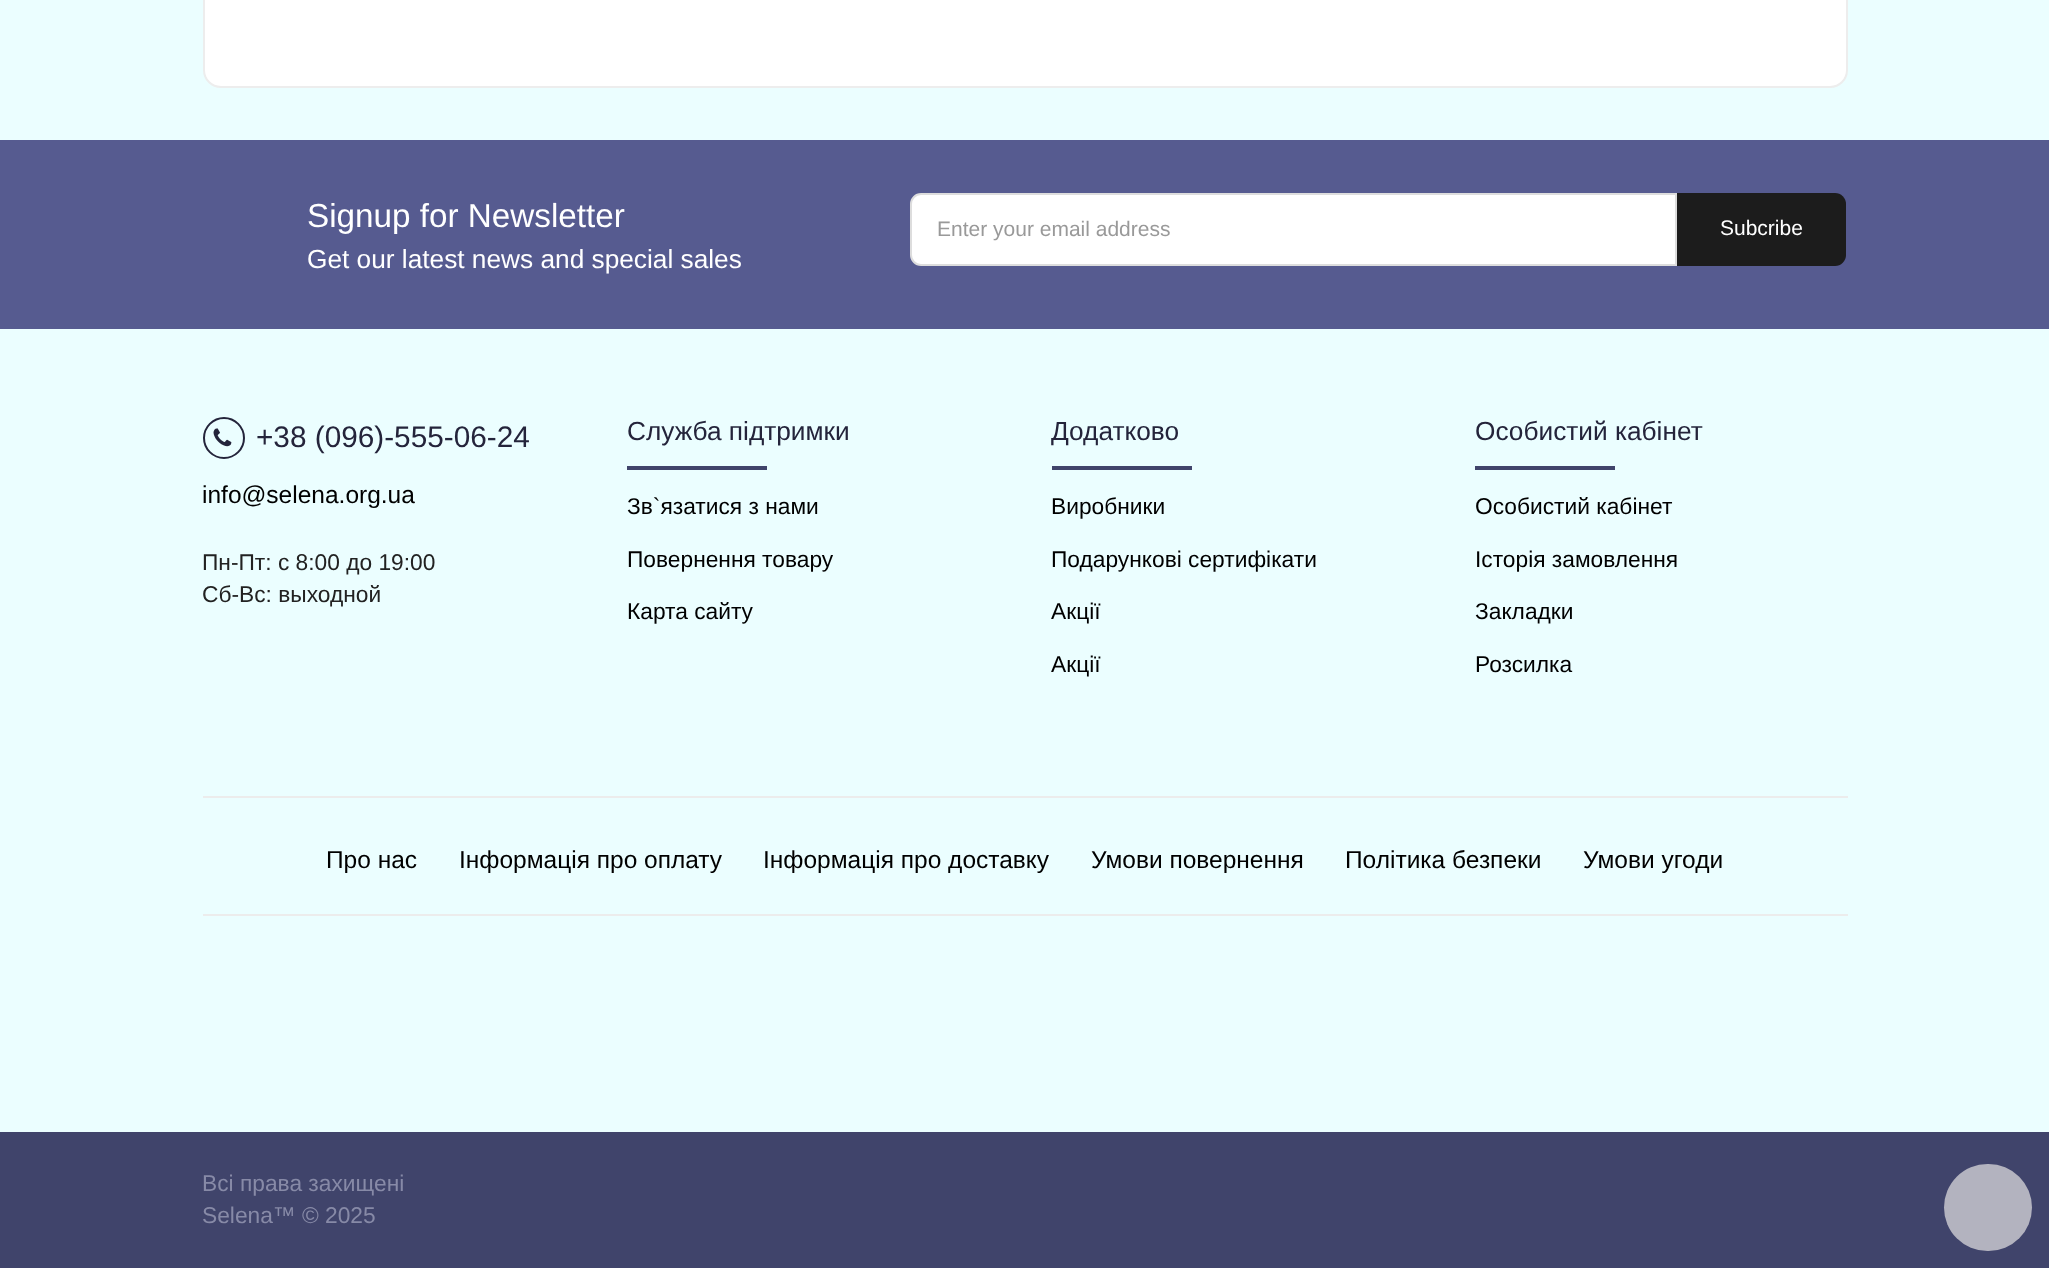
<!DOCTYPE html>
<meta charset="utf-8">
<style>body { margin: 0 } canvas { display: block }</style>
<canvas id="canvas" width="2049" height="1268"></canvas>
<script type="module">
  const canvas = document.getElementById("canvas");
  const ctx = canvas.getContext("2d");
  ctx.miterLimit = 4;
  ctx.fontKerning = "normal";
  async function loadImage(src) {
    const img = new Image();
    img.src = src;
    await img.decode();
    return img;
  }

  ctx.fillStyle = "#ebfeff";
  ctx.fillRect(0, 0, 2049, 1268);
  ctx.fillStyle = "#ffffff";
  ctx.beginPath();
  ctx.moveTo(204, -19);
  ctx.lineTo(1830, -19);
  ctx.bezierCurveTo(1839.5, -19, 1847, -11.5, 1847, -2);
  ctx.lineTo(1847, 70);
  ctx.bezierCurveTo(1847, 79.5, 1839.5, 87, 1830, 87);
  ctx.lineTo(221, 87);
  ctx.bezierCurveTo(211.5, 87, 204, 79.5, 204, 70);
  ctx.closePath();
  ctx.fill();
  ctx.strokeStyle = "#ededed";
  ctx.lineWidth = 2;
  ctx.stroke();
  ctx.fillStyle = "#565b90";
  ctx.fillRect(0, 140, 2049, 189);
  ctx.font = "33.25px Liberation Sans";
  ctx.fillStyle = "#ffffff";
  ctx.fillText("Signup for Newsletter", 307, 227);
  ctx.font = "26.25px Liberation Sans";
  ctx.fillText("Get our latest news and special sales", 307, 268);
  ctx.beginPath();
  ctx.roundRect(911, 194, 765, 71, [10, 0, 0, 10]);
  ctx.fill();
  ctx.strokeStyle = "#dddddd";
  ctx.stroke();
  ctx.font = "21px Liberation Sans";
  ctx.fillStyle = "#999999";
  ctx.fillText("Enter your email address", 937, 236);
  ctx.fillStyle = "#1c1c1c";
  ctx.beginPath();
  ctx.roundRect(1677, 193, 169, 73, [0, 11, 11, 0]);
  ctx.fill();
  ctx.fillStyle = "#ffffff";
  ctx.fillText("Subcribe", 1720, 235);
  ctx.beginPath();
  ctx.arc(224, 438, 20, 0, Math.PI * 2);
  ctx.strokeStyle = "#24243b";
  ctx.stroke();
  ctx.drawImage(await loadImage("img1.png"), 213, 428, 19, 19);
  ctx.font = "29.75px Liberation Sans";
  ctx.fillStyle = "#24243b";
  ctx.fillText("+38 (096)-555-06-24", 256, 447);
  ctx.font = "24.5px Liberation Sans";
  ctx.fillStyle = "#000000";
  ctx.fillText("info@selena.org.ua", 202, 503);
  ctx.font = "22.75px Liberation Sans";
  ctx.fillStyle = "#222222";
  ctx.fillText("Пн-Пт: с 8:00 до 19:00", 202, 570);
  ctx.fillText("Сб-Вс: выходной", 202, 602);
  ctx.font = "26.25px Liberation Sans";
  ctx.fillStyle = "#24243b";
  ctx.fillText("Служба підтримки", 627, 440);
  ctx.fillStyle = "#40446b";
  ctx.fillRect(627, 466, 140, 4);
  ctx.font = "22.75px Liberation Sans";
  ctx.fillStyle = "#000000";
  ctx.fillText("Зв`язатися з нами", 627, 514);
  ctx.fillText("Повернення товару", 627, 567);
  ctx.fillText("Карта сайту", 627, 619);
  ctx.font = "26.25px Liberation Sans";
  ctx.fillStyle = "#24243b";
  ctx.fillText("Додатково", 1051, 440);
  ctx.fillStyle = "#40446b";
  ctx.fillRect(1052, 466, 140, 4);
  ctx.font = "22.75px Liberation Sans";
  ctx.fillStyle = "#000000";
  ctx.fillText("Виробники", 1051, 514);
  ctx.fillText("Подарункові сертифікати", 1051, 567);
  ctx.fillText("Акції", 1051, 619);
  ctx.fillText("Акції", 1051, 672);
  ctx.font = "26.25px Liberation Sans";
  ctx.fillStyle = "#24243b";
  ctx.fillText("Особистий кабінет", 1475, 440);
  ctx.fillStyle = "#40446b";
  ctx.fillRect(1475, 466, 140, 4);
  ctx.font = "22.75px Liberation Sans";
  ctx.fillStyle = "#000000";
  ctx.fillText("Особистий кабінет", 1475, 514);
  ctx.fillText("Історія замовлення", 1475, 567);
  ctx.fillText("Закладки", 1475, 619);
  ctx.fillText("Розсилка", 1475, 672);
  ctx.fillStyle = "#ececec";
  ctx.fillRect(203, 796, 1645, 2);
  ctx.fillRect(203, 914, 1645, 2);
  ctx.font = "24.5px Liberation Sans";
  ctx.fillStyle = "#000000";
  ctx.fillText("Про нас", 326, 868);
  ctx.fillText("Інформація про оплату", 459, 868);
  ctx.fillText("Інформація про доставку", 763, 868);
  ctx.fillText("Умови повернення", 1091, 868);
  ctx.fillText("Політика безпеки", 1345, 868);
  ctx.fillText("Умови угоди", 1583, 868);
  ctx.fillStyle = "#40446b";
  ctx.fillRect(0, 1132, 2049, 136);
  ctx.font = "22.75px Liberation Sans";
  ctx.fillStyle = "#878aa7";
  ctx.fillText("Всі права захищені", 202, 1191);
  ctx.fillText("Selena™ © 2025", 202, 1223);
  ctx.fillStyle = "#b3b3bf";
  ctx.beginPath();
  ctx.roundRect(1944, 1164, 88, 87, 43.5);
  ctx.fill();
</script>
